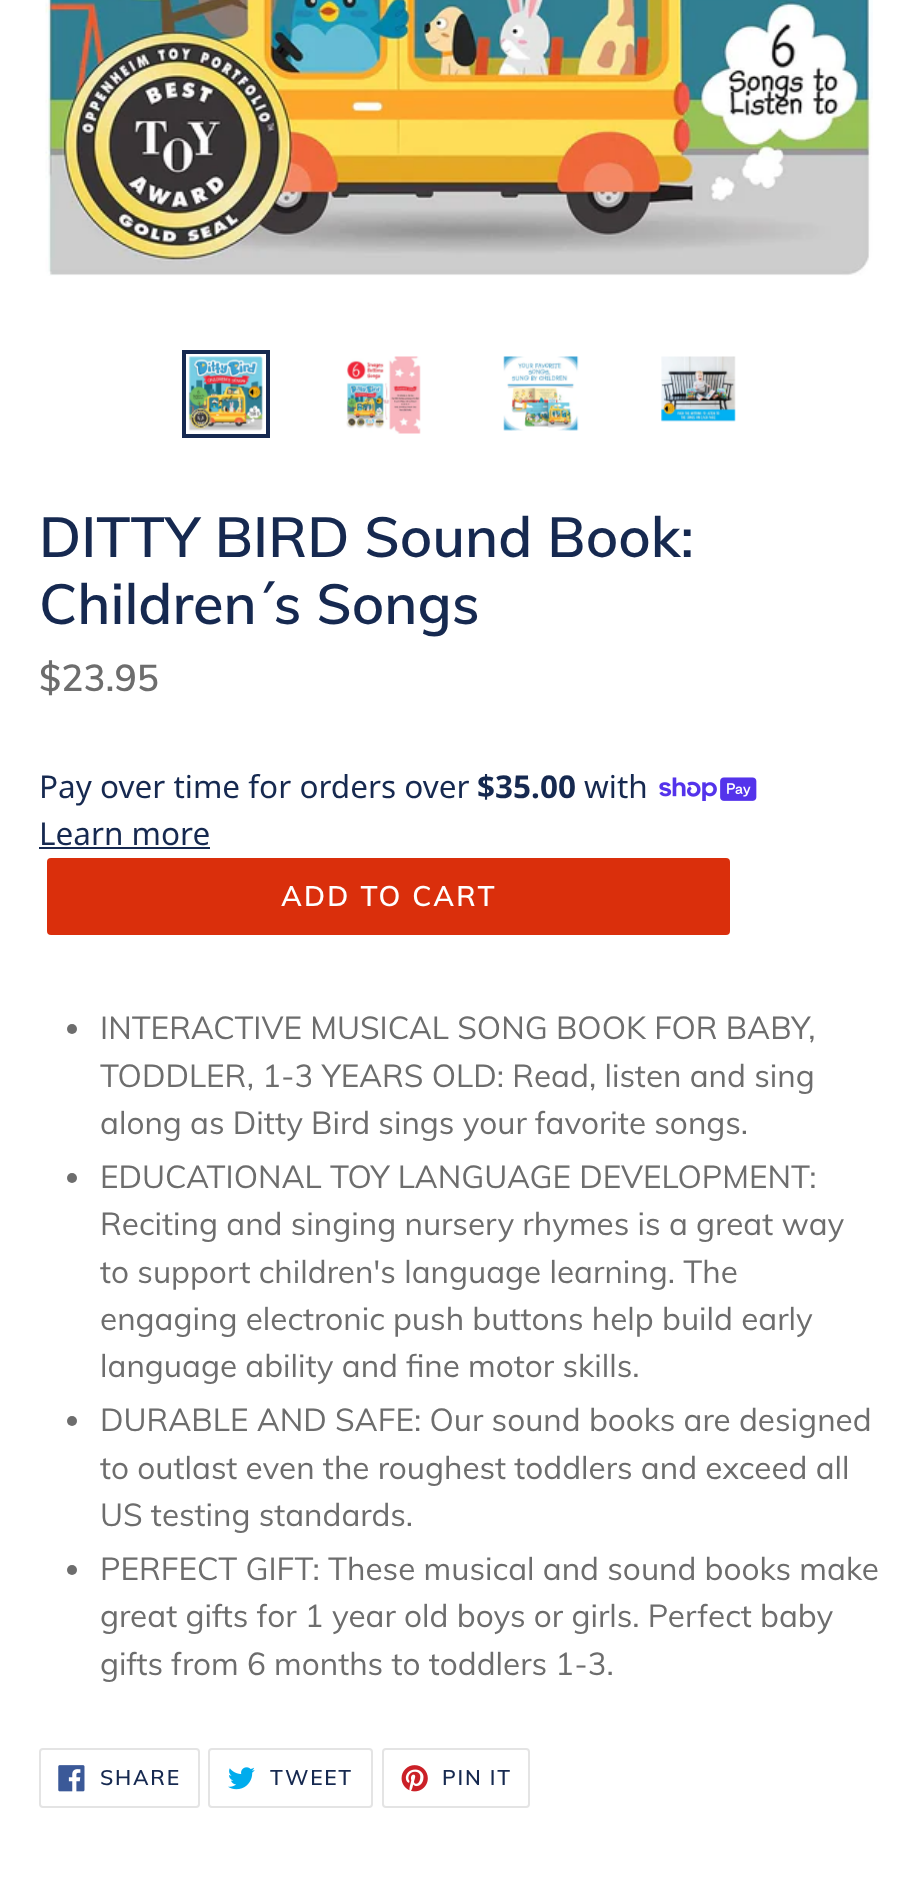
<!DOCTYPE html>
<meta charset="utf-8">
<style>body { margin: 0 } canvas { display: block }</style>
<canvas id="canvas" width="918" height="1901"></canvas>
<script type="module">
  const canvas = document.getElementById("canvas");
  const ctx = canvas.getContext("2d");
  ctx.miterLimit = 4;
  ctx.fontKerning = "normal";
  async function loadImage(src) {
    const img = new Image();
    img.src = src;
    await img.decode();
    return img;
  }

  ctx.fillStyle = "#ffffff";
  ctx.fillRect(0, 0, 918, 1901);
  ctx.drawImage(await loadImage("img1.png"), 45, 0, 828, 276);
  ctx.strokeStyle = "#162950";
  ctx.lineWidth = 4;
  ctx.strokeRect(184, 352, 84, 84);
  ctx.drawImage(await loadImage("img2.png"), 188, 356, 76, 75);
  ctx.drawImage(await loadImage("img3.png"), 346, 356, 75, 78);
  ctx.drawImage(await loadImage("img4.png"), 503, 356, 76, 75);
  ctx.drawImage(await loadImage("img5.png"), 661, 356, 75, 66);
  ctx.font = "600 56px Muli";
  ctx.fillStyle = "#162950";
  ctx.fillText("DITTY BIRD Sound Book:", 39, 557);
  ctx.fillText("Children´s Songs", 39, 624);
  ctx.font = "600 37px Muli";
  ctx.fillStyle = "#6d6d6d";
  ctx.fillText("$23.95", 39, 691);
  ctx.font = "31.5px Noto Sans";
  ctx.fillStyle = "#162950";
  ctx.fillText("Pay over time for orders over", 39, 798);
  ctx.font = "bold 31.5px Noto Sans";
  ctx.fillText("$35.00", 477, 798);
  ctx.font = "31.5px Noto Sans";
  ctx.fillText("with", 584, 798);
  ctx.drawImage(await loadImage("img6.png"), 659, 777, 98, 24);
  ctx.fillText("Learn more", 39, 845);
  ctx.fillRect(39, 847, 171, 2);
  ctx.fillStyle = "#da2f0c";
  ctx.beginPath();
  ctx.roundRect(47, 858, 683, 77, 4);
  ctx.fill();
  ctx.letterSpacing = "2.25px";
  ctx.font = "600 28px Muli";
  ctx.fillStyle = "#ffffff";
  ctx.fillText("ADD TO CART", 281, 906);
  ctx.fillStyle = "#6d6d6d";
  ctx.beginPath();
  ctx.arc(72, 1029, 5, 0, Math.PI * 2);
  ctx.fill();
  ctx.letterSpacing = "0px";
  ctx.font = "31.5px Muli";
  ctx.fillText("INTERACTIVE MUSICAL SONG BOOK FOR BABY,", 100, 1039);
  ctx.fillText("TODDLER, 1-3 YEARS OLD: Read, listen and sing", 100, 1087);
  ctx.fillText("along as Ditty Bird sings your favorite songs.", 100, 1134);
  ctx.beginPath();
  ctx.arc(72, 1178, 5, 0, Math.PI * 2);
  ctx.fill();
  ctx.fillText("EDUCATIONAL TOY LANGUAGE DEVELOPMENT:", 100, 1188);
  ctx.fillText("Reciting and singing nursery rhymes is a great way", 100, 1235);
  ctx.fillText("to support children's language learning. The", 100, 1283);
  ctx.fillText("engaging electronic push buttons help build early", 100, 1330);
  ctx.fillText("language ability and fine motor skills.", 100, 1377);
  ctx.beginPath();
  ctx.arc(72, 1421, 5, 0, Math.PI * 2);
  ctx.fill();
  ctx.fillText("DURABLE AND SAFE: Our sound books are designed", 100, 1431);
  ctx.fillText("to outlast even the roughest toddlers and exceed all", 100, 1479);
  ctx.fillText("US testing standards.", 100, 1526);
  ctx.beginPath();
  ctx.arc(72, 1570, 5, 0, Math.PI * 2);
  ctx.fill();
  ctx.fillText("PERFECT GIFT: These musical and sound books make", 100, 1580);
  ctx.fillText("great gifts for 1 year old boys or girls. Perfect baby", 100, 1627);
  ctx.fillText("gifts from 6 months to toddlers 1-3.", 100, 1675);
  ctx.beginPath();
  ctx.roundRect(40, 1749, 159, 58, 3);
  ctx.strokeStyle = "#e4e4e4";
  ctx.lineWidth = 2;
  ctx.stroke();
  ctx.drawImage(await loadImage("img7.png"), 58, 1765, 27, 27);
  ctx.letterSpacing = "1.75px";
  ctx.font = "600 21px Muli";
  ctx.fillStyle = "#162950";
  ctx.fillText("SHARE", 100, 1785);
  ctx.beginPath();
  ctx.roundRect(209, 1749, 163, 58, 3);
  ctx.stroke();
  ctx.drawImage(await loadImage("img8.png"), 228, 1767, 27, 23);
  ctx.fillText("TWEET", 270, 1785);
  ctx.beginPath();
  ctx.roundRect(383, 1749, 146, 58, 3);
  ctx.stroke();
  ctx.drawImage(await loadImage("img9.png"), 401, 1765, 27, 27);
  ctx.fillText("PIN IT", 442, 1785);
</script>
